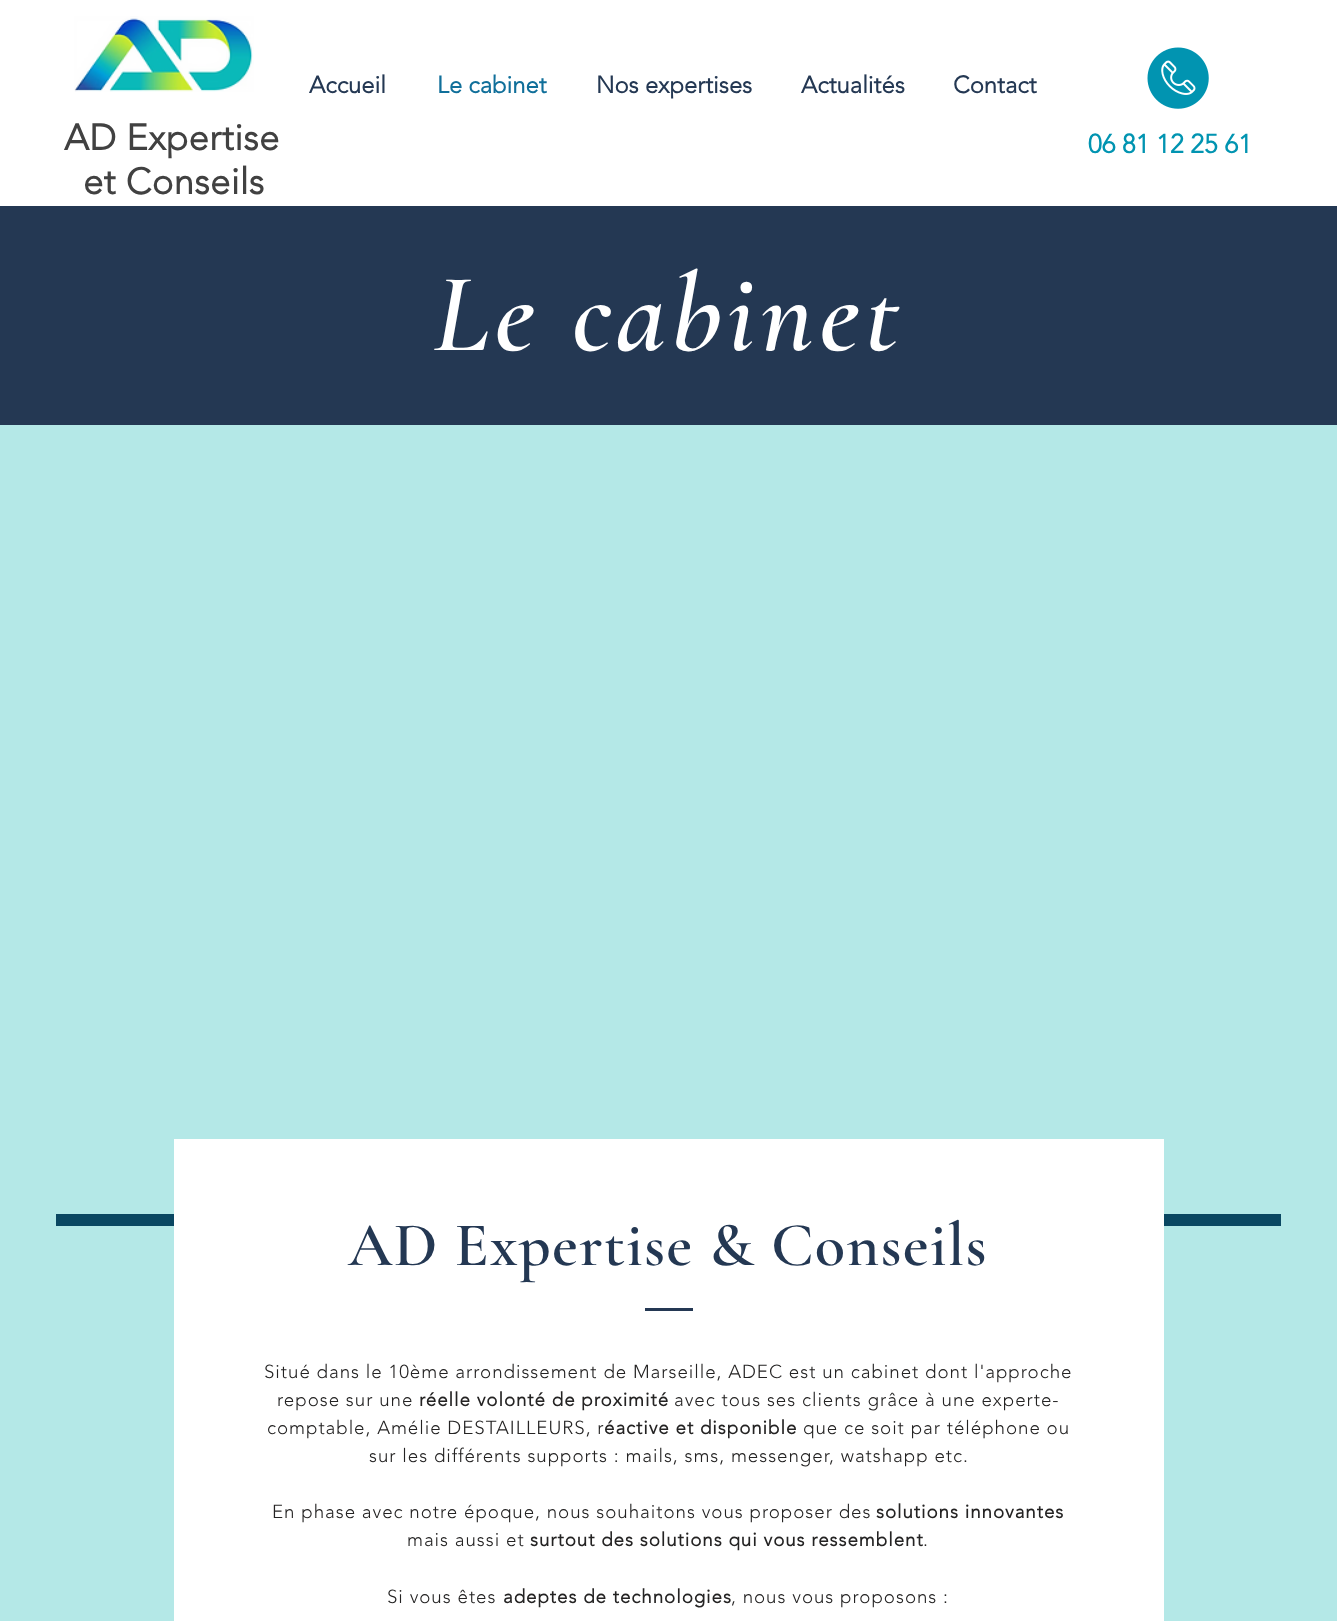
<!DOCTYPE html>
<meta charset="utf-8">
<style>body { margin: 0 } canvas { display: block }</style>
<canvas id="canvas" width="1337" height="1621"></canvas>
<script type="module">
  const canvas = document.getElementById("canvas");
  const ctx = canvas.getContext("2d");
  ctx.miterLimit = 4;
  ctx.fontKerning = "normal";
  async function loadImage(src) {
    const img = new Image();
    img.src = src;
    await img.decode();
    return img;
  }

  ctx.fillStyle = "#b4e8e7";
  ctx.fillRect(0, 0, 1337, 1621);
  ctx.fillStyle = "#ffffff";
  ctx.fillRect(0, 0, 1337, 206);
  ctx.font = "bold 23.75px 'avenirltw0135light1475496'";
  ctx.fillStyle = "#243853";
  ctx.fillText("Accueil", 309, 93);
  ctx.fillStyle = "#106f9a";
  ctx.fillText("Le cabinet", 437, 93);
  ctx.fillStyle = "#243853";
  ctx.fillText("Nos expertises", 596, 93);
  ctx.fillText("Actualités", 801, 93);
  ctx.fillText("Contact", 953, 93);
  ctx.drawImage(await loadImage("img1.png"), 74, 16, 180, 76);
  ctx.drawImage(await loadImage("img2.png"), 1147, 47, 62, 62);
  ctx.letterSpacing = "0.4px";
  ctx.font = "bold 36.25px 'avenirltw0135light1475496'";
  ctx.fillStyle = "#414141";
  ctx.fillText("AD Expertise", 64, 150);
  ctx.fillText("et Conseils", 83, 194);
  ctx.letterSpacing = "0px";
  ctx.font = "bold 26.25px 'avenirltw0135light1475496'";
  ctx.fillStyle = "#0194b1";
  ctx.fillText("06 81 12 25 61", 1088, 153);
  ctx.fillStyle = "#243853";
  ctx.fillRect(0, 206, 1337, 219);
  ctx.letterSpacing = "5.6px";
  ctx.font = "italic 600 112.5px Cormorant Garamond";
  ctx.fillStyle = "#ffffff";
  ctx.fillText("Le cabinet", 433, 350);
  ctx.fillStyle = "#0a4762";
  ctx.fillRect(56, 1214, 1225, 12);
  ctx.fillStyle = "#ffffff";
  ctx.fillRect(174, 1139, 990, 482);
  ctx.letterSpacing = "1.25px";
  ctx.font = "600 62.5px Cormorant Garamond";
  ctx.fillStyle = "#243853";
  ctx.fillText("AD Expertise & Conseils", 348, 1265);
  ctx.fillRect(645, 1308, 48, 3);
  ctx.letterSpacing = "0.95px";
  ctx.font = "300 18.75px 'avenirltw0135light1475496'";
  ctx.fillStyle = "#242323";
  ctx.fillText("Situé dans le 10ème arrondissement de Marseille, ADEC est un cabinet dont l'approche", 264, 1378);
  ctx.fillText("repose sur une", 277, 1406);
  ctx.font = "bold 18.75px 'avenirltw0135light1475496'";
  ctx.fillText("réelle volonté de proximité", 419, 1406);
  ctx.font = "300 18.75px 'avenirltw0135light1475496'";
  ctx.fillText("avec tous ses clients grâce à une experte-", 674, 1406);
  ctx.fillText("comptable, Amélie DESTAILLEURS, r", 267, 1434);
  ctx.font = "bold 18.75px 'avenirltw0135light1475496'";
  ctx.fillText("éactive et disponible", 604, 1434);
  ctx.font = "300 18.75px 'avenirltw0135light1475496'";
  ctx.fillText("que ce soit par téléphone ou", 803, 1434);
  ctx.fillText("sur les différents supports : mails, sms, messenger, watshapp etc.", 369, 1462);
  ctx.fillText("En phase avec notre époque, nous souhaitons vous proposer des", 272, 1518);
  ctx.font = "bold 18.75px 'avenirltw0135light1475496'";
  ctx.fillText("solutions innovantes", 876, 1518);
  ctx.font = "300 18.75px 'avenirltw0135light1475496'";
  ctx.fillText("mais aussi et", 407, 1546);
  ctx.font = "bold 18.75px 'avenirltw0135light1475496'";
  ctx.fillText("surtout des solutions qui vous ressemblent", 530, 1546);
  ctx.font = "300 18.75px 'avenirltw0135light1475496'";
  ctx.fillText(".", 923, 1546);
  ctx.fillText("Si vous êtes", 387, 1603);
  ctx.font = "bold 18.75px 'avenirltw0135light1475496'";
  ctx.fillText("adeptes de technologies", 503, 1603);
  ctx.font = "300 18.75px 'avenirltw0135light1475496'";
  ctx.fillText(", nous vous proposons :", 731, 1603);
</script>
